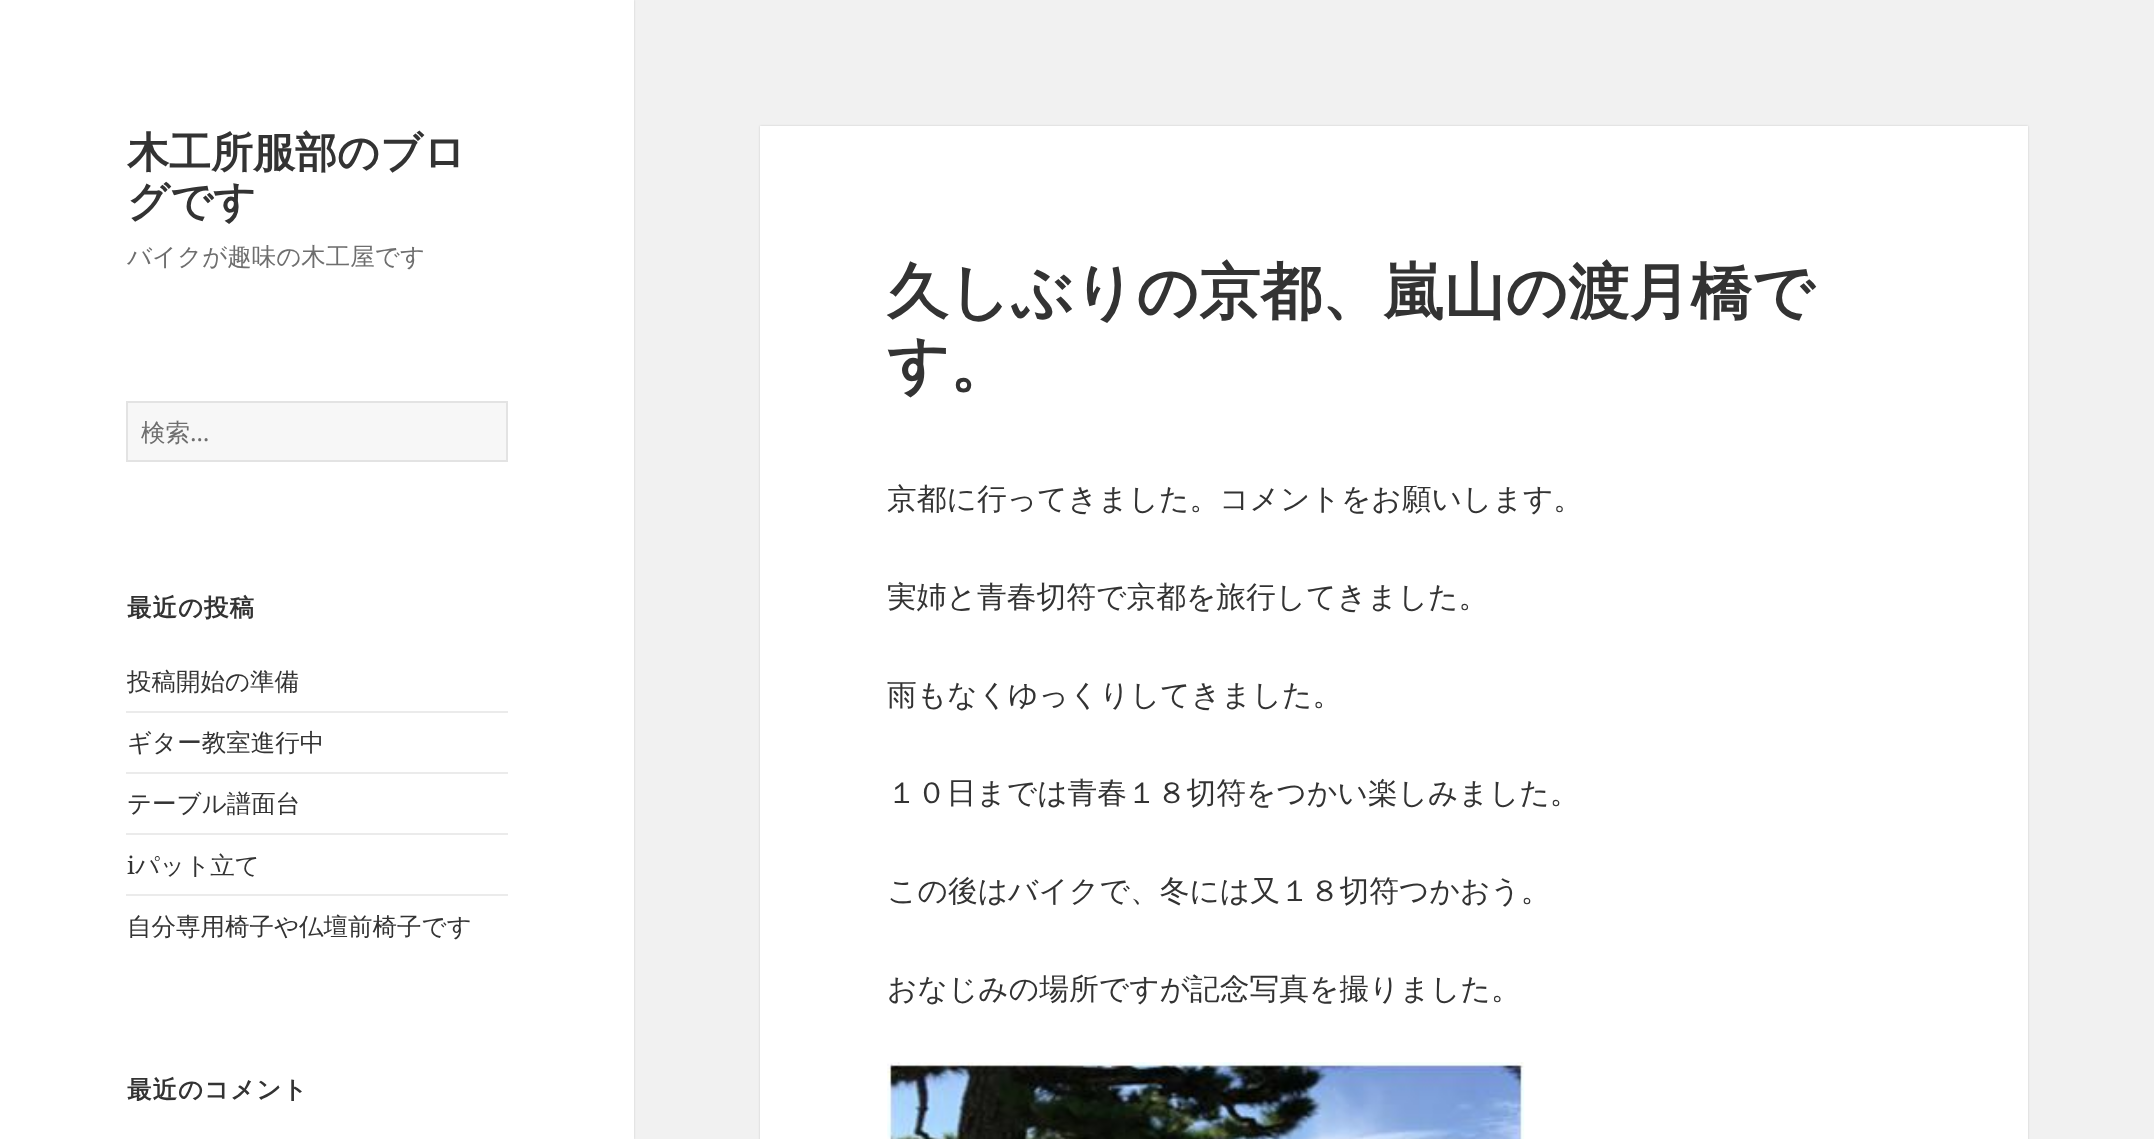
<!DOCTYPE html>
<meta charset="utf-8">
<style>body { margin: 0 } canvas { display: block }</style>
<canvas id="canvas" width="2154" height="1139"></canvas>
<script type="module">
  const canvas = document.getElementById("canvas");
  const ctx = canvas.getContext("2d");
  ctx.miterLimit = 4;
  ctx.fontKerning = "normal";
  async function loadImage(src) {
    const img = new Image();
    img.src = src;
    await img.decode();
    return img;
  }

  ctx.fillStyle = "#f1f1f1";
  ctx.fillRect(0, 0, 2154, 1139);
  ctx.fillStyle = "rgba(0, 0, 0, 0.15)";
  ctx.filter = "blur(1px)";
  ctx.beginPath();
  ctx.rect(0, 0, 634, 1139);
  ctx.fill();
  ctx.filter = "none";
  ctx.fillStyle = "#ffffff";
  ctx.fillRect(0, 0, 634, 1139);
  ctx.font = "bold 42px WenQuanYi Zen Hei";
  ctx.fillStyle = "#333333";
  ctx.fillText("木工所服部のブロ", 127, 167);
  ctx.fillText("グです", 127, 216);
  ctx.font = "500 24.5px WenQuanYi Zen Hei";
  ctx.fillStyle = "#6e6e6e";
  ctx.fillText("バイクが趣味の木工屋です", 127, 265);
  ctx.fillStyle = "#f7f7f7";
  ctx.beginPath();
  ctx.rect(127, 402, 380, 59);
  ctx.fill();
  ctx.strokeStyle = "#e3e3e3";
  ctx.lineWidth = 2;
  ctx.stroke();
  ctx.fillStyle = "#6e6e6e";
  ctx.fillText("検索", 141, 441);
  ctx.font = "24.5px Noto Sans";
  ctx.fillText("…", 190, 441);
  ctx.letterSpacing = "1px";
  ctx.font = "bold 24.5px WenQuanYi Zen Hei";
  ctx.fillStyle = "#333333";
  ctx.fillText("最近の投稿", 127, 616);
  ctx.letterSpacing = "0px";
  ctx.font = "500 24.5px WenQuanYi Zen Hei";
  ctx.fillText("投稿開始の準備", 127, 690);
  ctx.fillStyle = "#ebebeb";
  ctx.fillRect(126, 711, 382, 2);
  ctx.fillStyle = "#333333";
  ctx.fillText("ギター教室進行中", 127, 751);
  ctx.fillStyle = "#ebebeb";
  ctx.fillRect(126, 772, 382, 2);
  ctx.fillStyle = "#333333";
  ctx.fillText("テーブル譜面台", 127, 812);
  ctx.fillStyle = "#ebebeb";
  ctx.fillRect(126, 833, 382, 2);
  ctx.font = "24.5px Noto Serif";
  ctx.fillStyle = "#333333";
  ctx.fillText("i", 127, 874);
  ctx.font = "500 24.5px WenQuanYi Zen Hei";
  ctx.fillText("パット立て", 135, 874);
  ctx.fillStyle = "#ebebeb";
  ctx.fillRect(126, 894, 382, 2);
  ctx.fillStyle = "#333333";
  ctx.fillText("自分専用椅子や仏壇前椅子です", 127, 935);
  ctx.letterSpacing = "1px";
  ctx.font = "bold 24.5px WenQuanYi Zen Hei";
  ctx.fillText("最近のコメント", 127, 1098);
  ctx.fillStyle = "rgba(0, 0, 0, 0.15)";
  ctx.filter = "blur(1px)";
  ctx.beginPath();
  ctx.rect(760, 126, 1268, 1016);
  ctx.fill();
  ctx.filter = "none";
  ctx.fillStyle = "#ffffff";
  ctx.fillRect(760, 126, 1268, 1013);
  ctx.letterSpacing = "0px";
  ctx.font = "bold 61.25px WenQuanYi Zen Hei";
  ctx.fillStyle = "#333333";
  ctx.fillText("久しぶりの京都、嵐山の渡月橋で", 887, 313);
  ctx.fillText("す。", 887, 386);
  ctx.font = "500 29.75px WenQuanYi Zen Hei";
  ctx.fillText("京都に行ってきました。コメントをお願いします。", 887, 509);
  ctx.fillText("実姉と青春切符で京都を旅行してきました。", 887, 607);
  ctx.fillText("雨もなくゆっくりしてきました。", 887, 705);
  ctx.fillText("１０日までは青春１８切符をつかい楽しみました。", 887, 803);
  ctx.fillText("この後はバイクで、冬には又１８切符つかおう。", 887, 901);
  ctx.fillText("おなじみの場所ですが記念写真を撮りました。", 887, 999);
  ctx.drawImage(await loadImage("img1.png"), 887, 1062, 638, 77);
</script>
